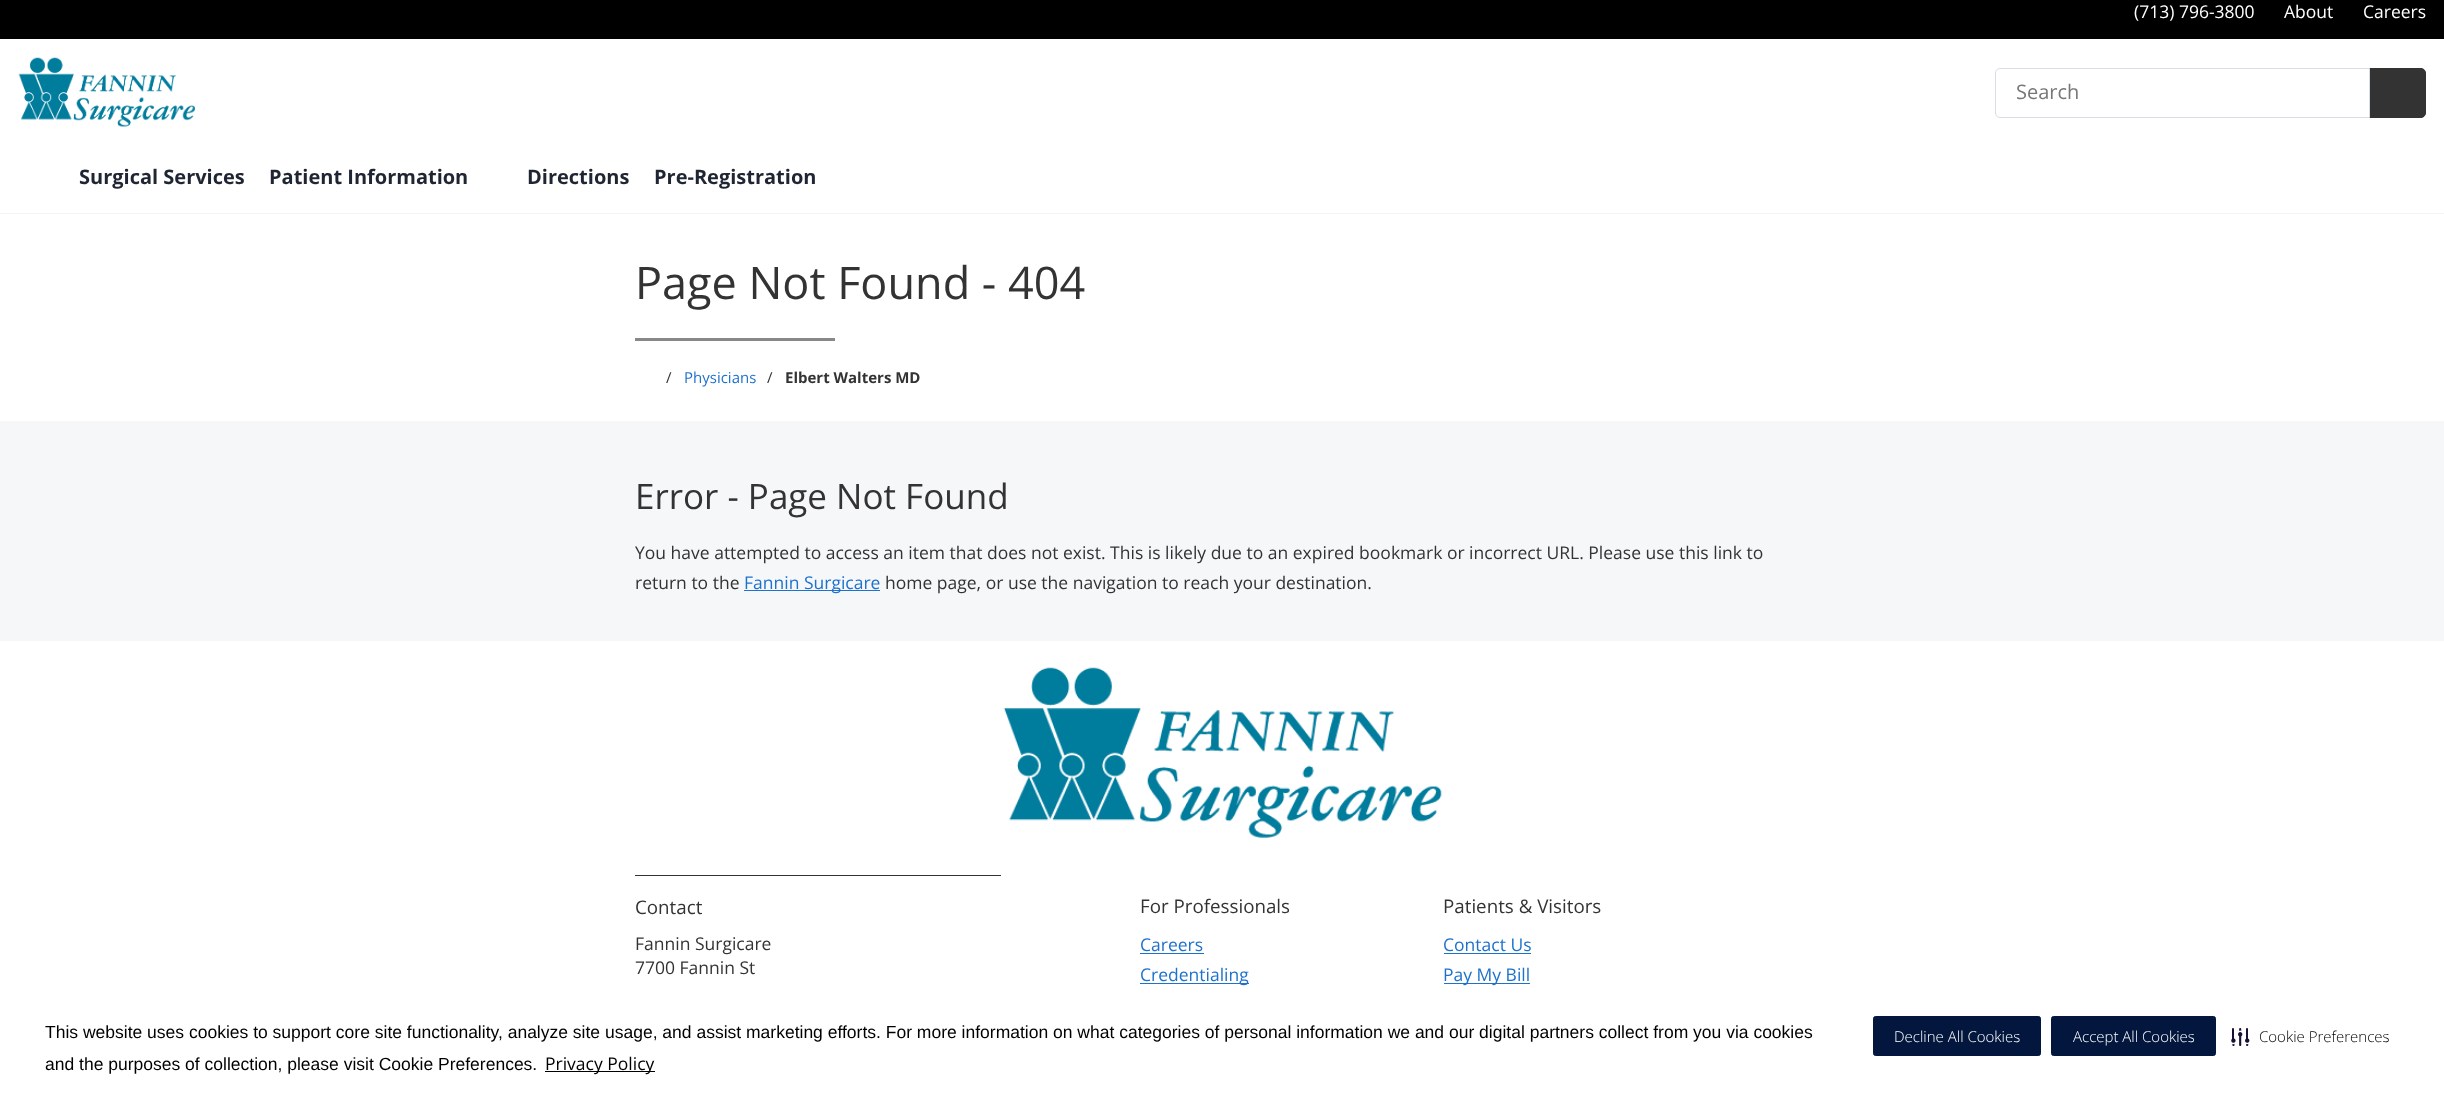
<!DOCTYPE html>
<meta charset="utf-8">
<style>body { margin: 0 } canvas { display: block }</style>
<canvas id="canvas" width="2444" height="1109"></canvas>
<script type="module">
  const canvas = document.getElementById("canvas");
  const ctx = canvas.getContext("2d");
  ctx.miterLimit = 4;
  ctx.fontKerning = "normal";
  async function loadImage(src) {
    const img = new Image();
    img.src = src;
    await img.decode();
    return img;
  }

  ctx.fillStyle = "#f5f7f9";
  ctx.fillRect(0, 0, 2444, 1109);
  ctx.fillStyle = "#ffffff";
  ctx.fillRect(0, 39, 2444, 174);
  ctx.fillStyle = "#000000";
  ctx.fillRect(0, 0, 2444, 39);
  ctx.font = "17.5px Open Sans";
  ctx.fillStyle = "#ffffff";
  ctx.fillText("(713) 796-3800", 2134, 18);
  ctx.fillText("About", 2284, 18);
  ctx.fillText("Careers", 2363, 18);
  ctx.drawImage(await loadImage("img1.png"), 18, 57, 177, 70);
  ctx.fillStyle = "#333333";
  ctx.beginPath();
  ctx.roundRect(2369.5, 68.5, 56, 49, [0, 4.5, 4.5, 0]);
  ctx.fill();
  ctx.strokeStyle = "#333333";
  ctx.stroke();
  ctx.fillStyle = "#ffffff";
  ctx.beginPath();
  ctx.roundRect(1995.5, 68.5, 374, 49, [4.5, 0, 0, 4.5]);
  ctx.fill();
  ctx.strokeStyle = "#d8dde6";
  ctx.stroke();
  ctx.font = "20px Open Sans";
  ctx.fillStyle = "#777777";
  ctx.fillText("Search", 2016, 99);
  ctx.fillStyle = "#f5f3f3";
  ctx.fillRect(0, 213, 2444, 1);
  ctx.font = "bold 20px Open Sans";
  ctx.fillStyle = "#1f2532";
  ctx.fillText("Surgical Services", 79, 184);
  ctx.fillText("Patient Information", 269, 184);
  ctx.fillText("Directions", 527, 184);
  ctx.fillText("Pre-Registration", 654, 184);
  ctx.fillStyle = "#ffffff";
  ctx.fillRect(0, 214, 2444, 207);
  ctx.font = "45px Open Sans";
  ctx.fillStyle = "#333333";
  ctx.fillText("Page Not Found - 404", 635, 299);
  ctx.fillStyle = "#888888";
  ctx.fillRect(635, 338, 200, 3);
  ctx.font = "15px Open Sans";
  ctx.fillStyle = "#333333";
  ctx.fillText("/", 666, 383);
  ctx.fillStyle = "#1e71cd";
  ctx.fillText("Physicians", 684, 383);
  ctx.fillStyle = "#333333";
  ctx.fillText("/", 767, 383);
  ctx.font = "bold 15px Open Sans";
  ctx.fillText("Elbert Walters MD", 785, 383);
  ctx.font = "35px Open Sans";
  ctx.fillText("Error - Page Not Found", 635, 509);
  ctx.font = "17.5px Open Sans";
  ctx.fillText("You have attempted to access an item that does not exist. This is likely due to an expired bookmark or incorrect URL. Please use this link to", 635, 559);
  ctx.fillText("return to the", 635, 589);
  ctx.fillStyle = "#1e71cd";
  ctx.fillRect(744, 590, 136, 1);
  ctx.fillText("Fannin Surgicare", 744, 589);
  ctx.fillStyle = "#333333";
  ctx.fillText("home page, or use the navigation to reach your destination.", 885, 589);
  ctx.fillStyle = "#ffffff";
  ctx.fillRect(0, 641, 2444, 468);
  ctx.drawImage(await loadImage("img2.png"), 1003, 667, 439, 171);
  ctx.fillStyle = "#333333";
  ctx.fillRect(635, 875, 366, 1);
  ctx.font = "18.75px Open Sans";
  ctx.fillText("Contact", 635, 914);
  ctx.font = "17.5px Open Sans";
  ctx.fillText("Fannin Surgicare", 635, 950);
  ctx.fillText("7700 Fannin St", 635, 974);
  ctx.font = "18.75px Open Sans";
  ctx.fillText("For Professionals", 1140, 913);
  ctx.font = "17.5px Open Sans";
  ctx.fillStyle = "#1e71cd";
  ctx.fillText("Careers", 1140, 951);
  ctx.fillRect(1140, 953, 64, 1);
  ctx.fillRect(1140, 983, 109, 1);
  ctx.fillText("Credentialing", 1140, 981);
  ctx.font = "18.75px Open Sans";
  ctx.fillStyle = "#333333";
  ctx.fillText("Patients & Visitors", 1443, 913);
  ctx.font = "17.5px Open Sans";
  ctx.fillStyle = "#1e71cd";
  ctx.fillText("Contact Us", 1443, 951);
  ctx.fillRect(1444, 953, 87, 1);
  ctx.fillRect(1444, 983, 86, 1);
  ctx.fillText("Pay My Bill", 1443, 981);
  ctx.font = "17.5px Liberation Sans";
  ctx.fillStyle = "#000000";
  ctx.fillText("This website uses cookies to support core site functionality, analyze site usage, and assist marketing efforts. For more information on what categories of personal information we and our digital partners collect from you via cookies", 45, 1038);
  ctx.fillText("and the purposes of collection, please visit Cookie Preferences.", 45, 1070);
  ctx.fillRect(545, 1071, 110, 1);
  ctx.font = "17.5px Open Sans";
  ctx.fillText("Privacy Policy", 545, 1070);
  ctx.fillStyle = "#03173e";
  ctx.beginPath();
  ctx.roundRect(1873.5, 1016.5, 167, 39, 2);
  ctx.fill();
  ctx.strokeStyle = "#03173e";
  ctx.stroke();
  ctx.font = "300 15px Open Sans";
  ctx.fillStyle = "#ffffff";
  ctx.fillText("Decline All Cookies", 1894, 1042);
  ctx.fillStyle = "#03173e";
  ctx.beginPath();
  ctx.roundRect(2051.5, 1016.5, 164, 39, 2);
  ctx.fill();
  ctx.stroke();
  ctx.fillStyle = "#ffffff";
  ctx.fillText("Accept All Cookies", 2073, 1042);
  ctx.drawImage(await loadImage("img3.png"), 2231, 1028, 19, 18);
  ctx.fillStyle = "#000000";
  ctx.fillText("Cookie Preferences", 2259, 1042);
</script>
